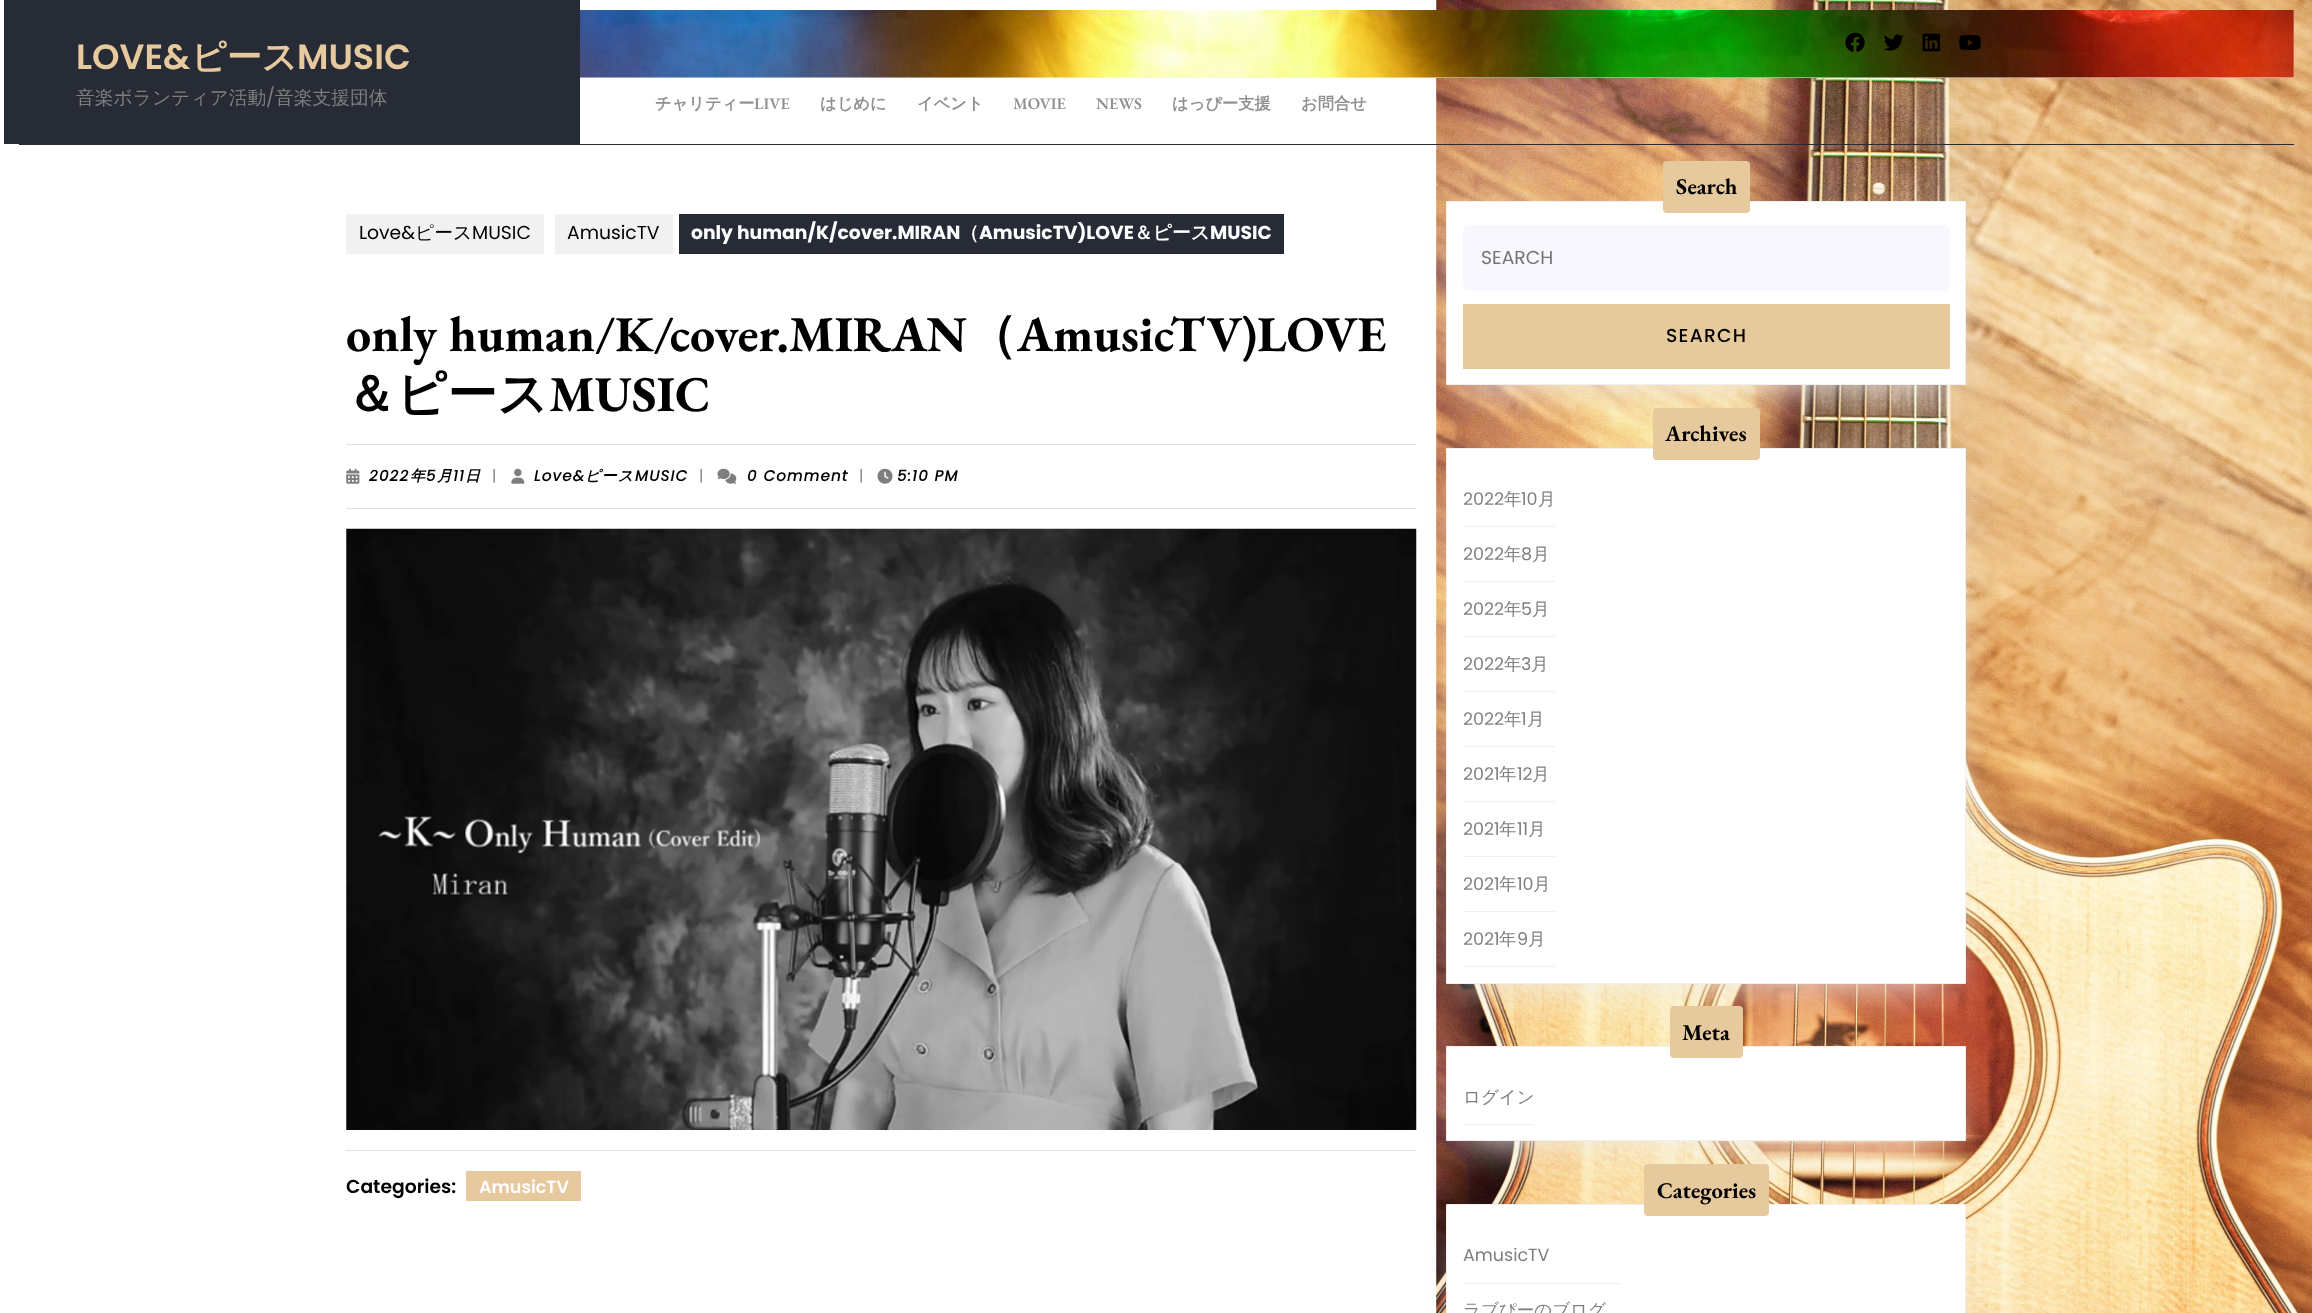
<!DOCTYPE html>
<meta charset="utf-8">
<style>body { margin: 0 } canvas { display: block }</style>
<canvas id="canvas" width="2312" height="1313"></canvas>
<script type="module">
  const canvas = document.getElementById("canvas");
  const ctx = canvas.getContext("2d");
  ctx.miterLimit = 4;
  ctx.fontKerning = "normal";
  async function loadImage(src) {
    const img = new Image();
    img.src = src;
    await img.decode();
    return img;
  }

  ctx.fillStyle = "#ffffff";
  ctx.fillRect(0, 0, 2312, 1313);
  ctx.drawImage(await loadImage("img1.png"), 1436, 0, 876, 1313);
  ctx.fillStyle = "#272b36";
  ctx.fillRect(19, 144, 2275, 1);
  ctx.fillRect(4, 0, 576, 144);
  ctx.font = "600 35px Poppins";
  ctx.fillStyle = "#e7c99e";
  ctx.fillText("LOVE&", 76, 69);
  ctx.font = "bold 35px WenQuanYi Zen Hei";
  ctx.fillText("ピース", 191, 69);
  ctx.font = "600 35px Poppins";
  ctx.fillText("MUSIC", 297, 69);
  ctx.font = "500 18.75px WenQuanYi Zen Hei";
  ctx.fillStyle = "#7e7f7d";
  ctx.fillText("音楽ボランティア活動", 76, 104);
  ctx.font = "18.75px Poppins";
  ctx.fillText("/", 266, 104);
  ctx.font = "500 18.75px WenQuanYi Zen Hei";
  ctx.fillText("音楽支援団体", 275, 104);
  ctx.fillStyle = "#f5f4f1";
  ctx.fillRect(580, 10, 1714, 68);
  ctx.drawImage(await loadImage("img2.png"), 580, 10, 1714, 68);
  ctx.drawImage(await loadImage("img3.png"), 1845, 32, 20, 20);
  ctx.drawImage(await loadImage("img4.png"), 1884, 34, 20, 17);
  ctx.drawImage(await loadImage("img5.png"), 1922, 33, 18, 19);
  ctx.drawImage(await loadImage("img6.png"), 1959, 35, 22, 15);
  ctx.font = "bold 16.25px WenQuanYi Zen Hei";
  ctx.fillStyle = "#909090";
  ctx.fillText("チャリティー", 655, 109);
  ctx.font = "600 16.25px EB Garamond";
  ctx.fillText("LIVE", 754, 109);
  ctx.font = "bold 16.25px WenQuanYi Zen Hei";
  ctx.fillText("はじめに", 820, 109);
  ctx.fillText("イベント", 917, 109);
  ctx.font = "600 16.25px EB Garamond";
  ctx.fillText("MOVIE", 1013, 109);
  ctx.fillText("NEWS", 1096, 109);
  ctx.font = "bold 16.25px WenQuanYi Zen Hei";
  ctx.fillText("はっぴー支援", 1172, 109);
  ctx.fillText("お問合せ", 1301, 109);
  ctx.fillStyle = "#f1f1f1";
  ctx.fillRect(346, 214, 198, 40);
  ctx.font = "18.75px Poppins";
  ctx.fillStyle = "#000000";
  ctx.fillText("Love&", 359, 239);
  ctx.font = "500 18.75px WenQuanYi Zen Hei";
  ctx.fillText("ピース", 415, 239);
  ctx.font = "18.75px Poppins";
  ctx.fillText("MUSIC", 472, 239);
  ctx.fillStyle = "#f1f1f1";
  ctx.fillRect(555, 214, 118, 40);
  ctx.fillStyle = "#000000";
  ctx.fillText("AmusicTV", 567, 239);
  ctx.fillStyle = "#272b36";
  ctx.fillRect(679, 214, 605, 40);
  ctx.font = "bold 18.75px Poppins";
  ctx.fillStyle = "#ffffff";
  ctx.fillText("only human/K/cover.MIRAN", 691, 239);
  ctx.font = "bold 18.75px WenQuanYi Zen Hei";
  ctx.fillText("（", 960, 239);
  ctx.font = "bold 18.75px Poppins";
  ctx.fillText("AmusicTV)LOVE", 979, 239);
  ctx.font = "bold 18.75px WenQuanYi Zen Hei";
  ctx.fillText("＆ピース", 1134, 239);
  ctx.font = "bold 18.75px Poppins";
  ctx.fillText("MUSIC", 1210, 239);
  ctx.font = "bold 50px EB Garamond";
  ctx.fillStyle = "#000000";
  ctx.fillText("only human/K/cover.MIRAN", 346, 351);
  ctx.font = "bold 50px WenQuanYi Zen Hei";
  ctx.fillText("（", 967, 351);
  ctx.font = "bold 50px EB Garamond";
  ctx.fillText("AmusicTV)LOVE", 1017, 351);
  ctx.font = "bold 50px WenQuanYi Zen Hei";
  ctx.fillText("＆ピース", 346, 411);
  ctx.font = "bold 50px EB Garamond";
  ctx.fillText("MUSIC", 549, 411);
  ctx.fillStyle = "#f0f0f0";
  ctx.filter = "blur(22px)";
  ctx.beginPath();
  ctx.rect(1465, 239, 483, 146);
  ctx.fill();
  ctx.filter = "none";
  ctx.drawImage(await loadImage("img11.png"), 346, 528, 1071, 602);
  ctx.filter = "blur(22px)";
  ctx.beginPath();
  ctx.rect(1465, 485, 483, 499);
  ctx.fill();
  ctx.filter = "none";
  ctx.fillStyle = "#dfdfdf";
  ctx.fillRect(346, 444, 1070, 1);
  ctx.drawImage(await loadImage("img7.png"), 346, 468, 14, 16);
  ctx.letterSpacing = "1.25px";
  ctx.font = "italic bold 15px Poppins";
  ctx.fillStyle = "#000000";
  ctx.fillText("2022", 369, 481);
  ctx.font = "italic bold 15px WenQuanYi Zen Hei";
  ctx.fillText("年", 410, 481);
  ctx.font = "italic bold 15px Poppins";
  ctx.fillText("5", 426, 481);
  ctx.font = "italic bold 15px WenQuanYi Zen Hei";
  ctx.fillText("月", 437, 481);
  ctx.font = "italic bold 15px Poppins";
  ctx.fillText("11", 453, 481);
  ctx.font = "italic bold 15px WenQuanYi Zen Hei";
  ctx.fillText("日", 465, 481);
  ctx.letterSpacing = "0px";
  ctx.font = "15px Poppins";
  ctx.fillStyle = "#7e7f7d";
  ctx.fillText("|", 492, 481);
  ctx.drawImage(await loadImage("img8.png"), 511, 468, 14, 16);
  ctx.letterSpacing = "1.25px";
  ctx.font = "italic bold 15px Poppins";
  ctx.fillStyle = "#000000";
  ctx.fillText("Love&", 534, 481);
  ctx.font = "italic bold 15px WenQuanYi Zen Hei";
  ctx.fillText("ピース", 585, 481);
  ctx.font = "italic bold 15px Poppins";
  ctx.fillText("MUSIC", 635, 481);
  ctx.letterSpacing = "0px";
  ctx.font = "15px Poppins";
  ctx.fillStyle = "#7e7f7d";
  ctx.fillText("|", 699, 481);
  ctx.drawImage(await loadImage("img9.png"), 717, 468, 20, 16);
  ctx.letterSpacing = "1.25px";
  ctx.font = "italic bold 15px Poppins";
  ctx.fillStyle = "#000000";
  ctx.fillText("0 Comment", 747, 481);
  ctx.letterSpacing = "0px";
  ctx.font = "15px Poppins";
  ctx.fillStyle = "#7e7f7d";
  ctx.fillText("|", 859, 481);
  ctx.drawImage(await loadImage("img10.png"), 877, 468, 16, 16);
  ctx.letterSpacing = "1.25px";
  ctx.font = "italic bold 15px Poppins";
  ctx.fillStyle = "#000000";
  ctx.fillText("5:10 PM", 897, 481);
  ctx.fillStyle = "#dfdfde";
  ctx.fillRect(346, 508, 1070, 1);
  ctx.fillStyle = "#f0f0f0";
  ctx.filter = "blur(22px)";
  ctx.beginPath();
  ctx.rect(1465, 1084, 483, 57);
  ctx.fill();
  ctx.filter = "none";
  ctx.fillStyle = "#dfdfde";
  ctx.fillRect(346, 1150, 1070, 1);
  ctx.letterSpacing = "0px";
  ctx.font = "600 18.75px Poppins";
  ctx.fillStyle = "#000000";
  ctx.fillText("Categories:", 346, 1193);
  ctx.fillStyle = "#e7c99e";
  ctx.fillRect(466, 1171, 115, 30);
  ctx.font = "600 17.5px Poppins";
  ctx.fillStyle = "#ffffff";
  ctx.fillText("AmusicTV", 479, 1193);
  ctx.beginPath();
  ctx.rect(1446.5, 201.5, 519, 183);
  ctx.fill();
  ctx.strokeStyle = "#f0f0f0";
  ctx.stroke();
  ctx.fillStyle = "#e7c99e";
  ctx.beginPath();
  ctx.roundRect(1663, 161, 87, 52, 4);
  ctx.fill();
  ctx.font = "bold 22.5px EB Garamond";
  ctx.fillStyle = "#000000";
  ctx.fillText("Search", 1676, 194);
  ctx.fillStyle = "#f7f7fd";
  ctx.beginPath();
  ctx.roundRect(1463, 225, 487, 66, 6);
  ctx.fill();
  ctx.font = "18.75px Poppins";
  ctx.fillStyle = "#757575";
  ctx.fillText("SEARCH", 1481, 264);
  ctx.fillStyle = "#e7c99e";
  ctx.fillRect(1463, 304, 487, 65);
  ctx.letterSpacing = "1.25px";
  ctx.font = "500 18.75px Poppins";
  ctx.fillStyle = "#000000";
  ctx.fillText("SEARCH", 1666, 342);
  ctx.fillStyle = "#ffffff";
  ctx.beginPath();
  ctx.rect(1446.5, 448.5, 519, 535);
  ctx.fill();
  ctx.stroke();
  ctx.fillStyle = "#e7c99e";
  ctx.beginPath();
  ctx.roundRect(1653, 408, 107, 52, 4);
  ctx.fill();
  ctx.letterSpacing = "0px";
  ctx.font = "bold 22.5px EB Garamond";
  ctx.fillStyle = "#000000";
  ctx.fillText("Archives", 1665, 441);
  ctx.fillStyle = "#f0f0f0";
  ctx.fillRect(1463, 526, 92, 1);
  ctx.font = "17.5px Poppins";
  ctx.fillStyle = "#7e7f7d";
  ctx.fillText("2022", 1463, 505);
  ctx.font = "500 17.5px WenQuanYi Zen Hei";
  ctx.fillText("年", 1504, 505);
  ctx.font = "17.5px Poppins";
  ctx.fillText("10", 1521, 505);
  ctx.font = "500 17.5px WenQuanYi Zen Hei";
  ctx.fillText("月", 1538, 505);
  ctx.fillStyle = "#f0f0f0";
  ctx.fillRect(1463, 581, 92, 1);
  ctx.font = "17.5px Poppins";
  ctx.fillStyle = "#7e7f7d";
  ctx.fillText("2022", 1463, 560);
  ctx.font = "500 17.5px WenQuanYi Zen Hei";
  ctx.fillText("年", 1504, 560);
  ctx.font = "17.5px Poppins";
  ctx.fillText("8", 1521, 560);
  ctx.font = "500 17.5px WenQuanYi Zen Hei";
  ctx.fillText("月", 1532, 560);
  ctx.fillStyle = "#f0f0f0";
  ctx.fillRect(1463, 636, 92, 1);
  ctx.font = "17.5px Poppins";
  ctx.fillStyle = "#7e7f7d";
  ctx.fillText("2022", 1463, 615);
  ctx.font = "500 17.5px WenQuanYi Zen Hei";
  ctx.fillText("年", 1504, 615);
  ctx.font = "17.5px Poppins";
  ctx.fillText("5", 1521, 615);
  ctx.font = "500 17.5px WenQuanYi Zen Hei";
  ctx.fillText("月", 1532, 615);
  ctx.fillStyle = "#f0f0f0";
  ctx.fillRect(1463, 691, 92, 1);
  ctx.font = "17.5px Poppins";
  ctx.fillStyle = "#7e7f7d";
  ctx.fillText("2022", 1463, 670);
  ctx.font = "500 17.5px WenQuanYi Zen Hei";
  ctx.fillText("年", 1504, 670);
  ctx.font = "17.5px Poppins";
  ctx.fillText("3", 1521, 670);
  ctx.font = "500 17.5px WenQuanYi Zen Hei";
  ctx.fillText("月", 1531, 670);
  ctx.fillStyle = "#f0f0f0";
  ctx.fillRect(1463, 746, 92, 1);
  ctx.font = "17.5px Poppins";
  ctx.fillStyle = "#7e7f7d";
  ctx.fillText("2022", 1463, 725);
  ctx.font = "500 17.5px WenQuanYi Zen Hei";
  ctx.fillText("年", 1504, 725);
  ctx.font = "17.5px Poppins";
  ctx.fillText("1", 1521, 725);
  ctx.font = "500 17.5px WenQuanYi Zen Hei";
  ctx.fillText("月", 1527, 725);
  ctx.fillStyle = "#f0f0f0";
  ctx.fillRect(1463, 801, 92, 1);
  ctx.font = "17.5px Poppins";
  ctx.fillStyle = "#7e7f7d";
  ctx.fillText("2021", 1463, 780);
  ctx.font = "500 17.5px WenQuanYi Zen Hei";
  ctx.fillText("年", 1499, 780);
  ctx.font = "17.5px Poppins";
  ctx.fillText("12", 1517, 780);
  ctx.font = "500 17.5px WenQuanYi Zen Hei";
  ctx.fillText("月", 1532, 780);
  ctx.fillStyle = "#f0f0f0";
  ctx.fillRect(1463, 856, 92, 1);
  ctx.font = "17.5px Poppins";
  ctx.fillStyle = "#7e7f7d";
  ctx.fillText("2021", 1463, 835);
  ctx.font = "500 17.5px WenQuanYi Zen Hei";
  ctx.fillText("年", 1499, 835);
  ctx.font = "17.5px Poppins";
  ctx.fillText("11", 1517, 835);
  ctx.font = "500 17.5px WenQuanYi Zen Hei";
  ctx.fillText("月", 1528, 835);
  ctx.fillStyle = "#f0f0f0";
  ctx.fillRect(1463, 911, 92, 1);
  ctx.font = "17.5px Poppins";
  ctx.fillStyle = "#7e7f7d";
  ctx.fillText("2021", 1463, 890);
  ctx.font = "500 17.5px WenQuanYi Zen Hei";
  ctx.fillText("年", 1499, 890);
  ctx.font = "17.5px Poppins";
  ctx.fillText("10", 1517, 890);
  ctx.font = "500 17.5px WenQuanYi Zen Hei";
  ctx.fillText("月", 1533, 890);
  ctx.fillStyle = "#f0f0f0";
  ctx.fillRect(1463, 966, 92, 1);
  ctx.font = "17.5px Poppins";
  ctx.fillStyle = "#7e7f7d";
  ctx.fillText("2021", 1463, 945);
  ctx.font = "500 17.5px WenQuanYi Zen Hei";
  ctx.fillText("年", 1499, 945);
  ctx.font = "17.5px Poppins";
  ctx.fillText("9", 1517, 945);
  ctx.font = "500 17.5px WenQuanYi Zen Hei";
  ctx.fillText("月", 1528, 945);
  ctx.fillStyle = "#ffffff";
  ctx.beginPath();
  ctx.rect(1446.5, 1046.5, 519, 94);
  ctx.fill();
  ctx.stroke();
  ctx.fillStyle = "#e7c99e";
  ctx.beginPath();
  ctx.roundRect(1670, 1006, 73, 52, 4);
  ctx.fill();
  ctx.font = "bold 22.5px EB Garamond";
  ctx.fillStyle = "#000000";
  ctx.fillText("Meta", 1682, 1040);
  ctx.fillStyle = "#f0f0f0";
  ctx.fillRect(1463, 1124, 71, 1);
  ctx.font = "500 17.5px WenQuanYi Zen Hei";
  ctx.fillStyle = "#7e7f7d";
  ctx.fillText("ログイン", 1463, 1103);
  ctx.fillStyle = "#f0f0f0";
  ctx.filter = "blur(22px)";
  ctx.beginPath();
  ctx.rect(1465, 1241, 483, 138);
  ctx.fill();
  ctx.filter = "none";
  ctx.fillStyle = "#ffffff";
  ctx.beginPath();
  ctx.rect(1446.5, 1204.5, 519, 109);
  ctx.fill();
  ctx.stroke();
  ctx.fillStyle = "#e7c99e";
  ctx.beginPath();
  ctx.roundRect(1644, 1164, 125, 52, 4);
  ctx.fill();
  ctx.font = "bold 22.5px EB Garamond";
  ctx.fillStyle = "#000000";
  ctx.fillText("Categories", 1657, 1198);
  ctx.fillStyle = "#f0f0f0";
  ctx.fillRect(1463, 1283, 158, 1);
  ctx.font = "17.5px Poppins";
  ctx.fillStyle = "#7e7f7d";
  ctx.fillText("AmusicTV", 1463, 1261);
  ctx.font = "500 17.5px WenQuanYi Zen Hei";
  ctx.fillText("ラブぴーのブログ", 1463, 1316);
</script>
